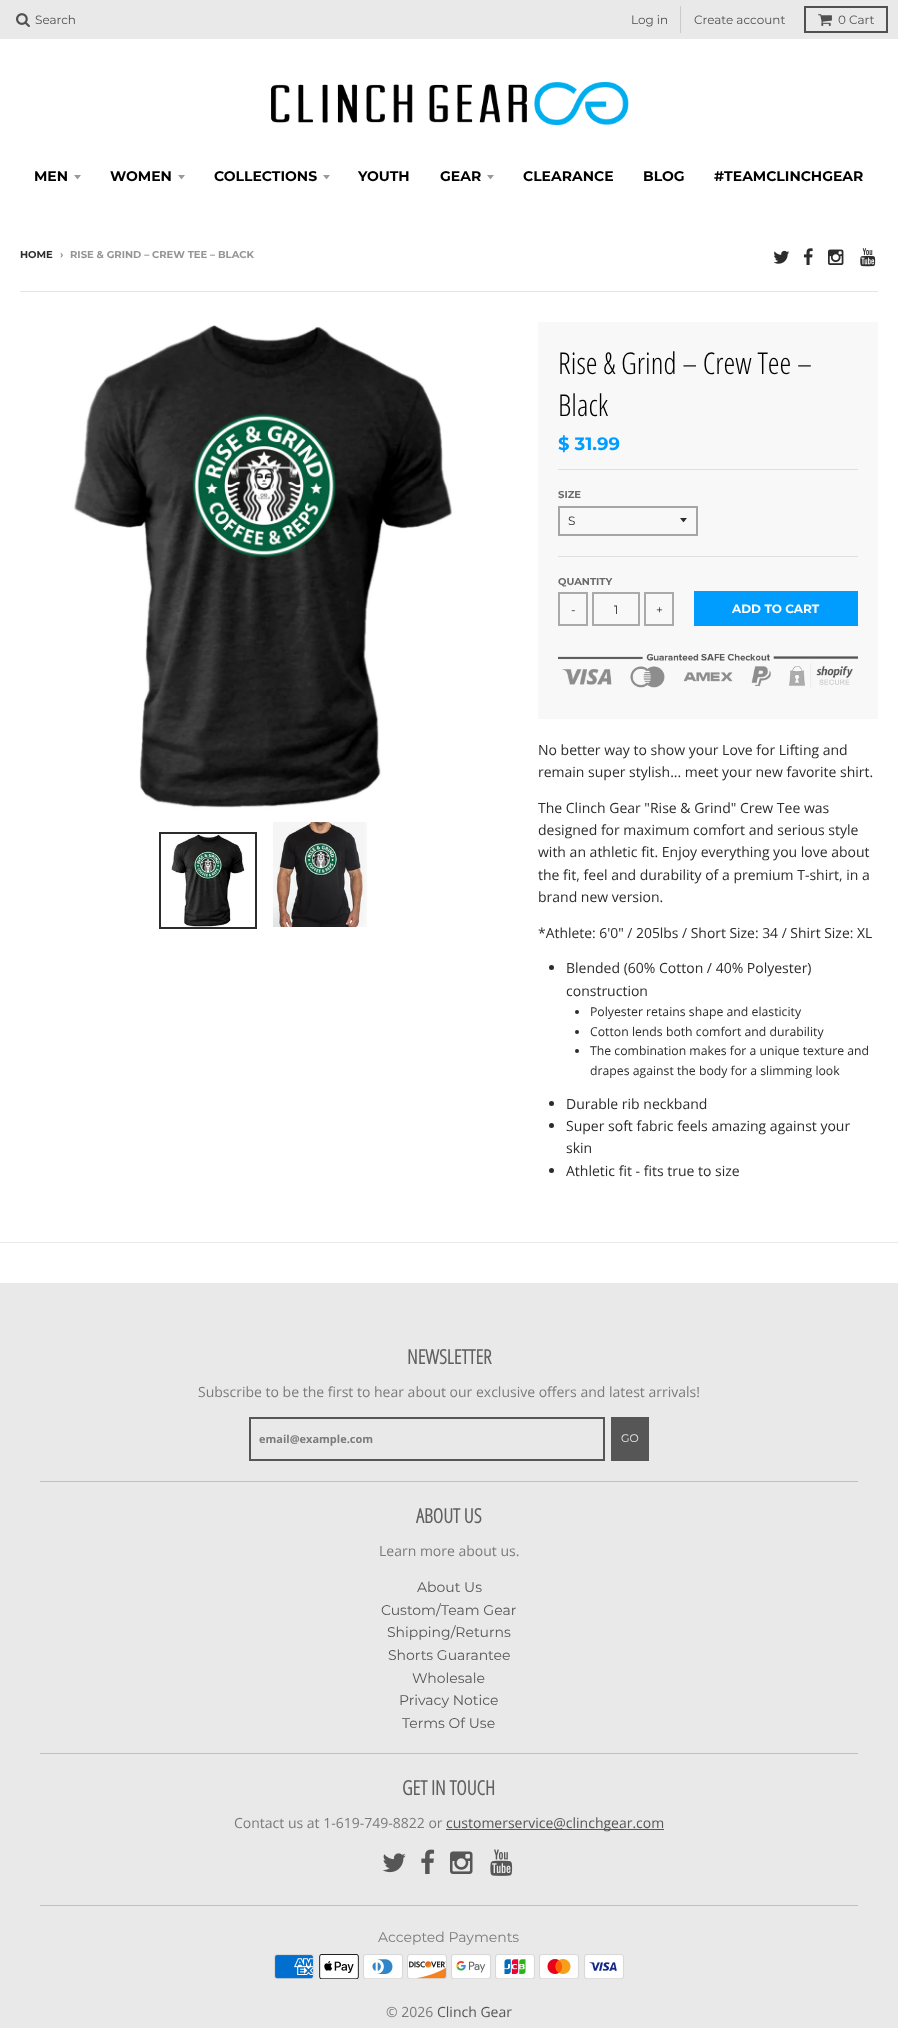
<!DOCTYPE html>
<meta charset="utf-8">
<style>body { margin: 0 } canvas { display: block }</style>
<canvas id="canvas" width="898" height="2028"></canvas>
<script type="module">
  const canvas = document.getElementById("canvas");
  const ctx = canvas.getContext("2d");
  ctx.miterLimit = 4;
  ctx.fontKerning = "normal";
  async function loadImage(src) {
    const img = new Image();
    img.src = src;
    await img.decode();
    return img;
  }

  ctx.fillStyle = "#ffffff";
  ctx.fillRect(0, 0, 898, 2028);
  ctx.fillStyle = "#e9e9e9";
  ctx.fillRect(0, 0, 898, 39);
  ctx.drawImage(await loadImage("img1.png"), 16, 13, 14, 14);
  ctx.font = "12px Montserrat";
  ctx.fillStyle = "#505050";
  ctx.fillText("Search", 35, 24);
  ctx.fillStyle = "#cacaca";
  ctx.fillRect(680, 6, 1, 27);
  ctx.fillStyle = "#505050";
  ctx.fillText("Log in", 631, 24);
  ctx.fillText("Create account", 694, 24);
  ctx.strokeStyle = "#505050";
  ctx.lineWidth = 2;
  ctx.strokeRect(805, 7, 82, 25);
  ctx.drawImage(await loadImage("img2.png"), 818, 14, 14, 12);
  ctx.fillText("0 Cart", 838, 24);
  ctx.drawImage(await loadImage("img3.png"), 271, 82, 358, 43);
  ctx.font = "bold 14px Montserrat";
  ctx.fillStyle = "#000000";
  ctx.fillText("MEN", 34, 181);
  ctx.fillStyle = "#999999";
  ctx.beginPath();
  ctx.moveTo(74, 175);
  ctx.bezierCurveTo(78.5, 180.5, 76.5, 180.5, 81, 175);
  ctx.closePath();
  ctx.fill();
  ctx.fillStyle = "#000000";
  ctx.fillText("WOMEN", 110, 181);
  ctx.fillStyle = "#999999";
  ctx.beginPath();
  ctx.moveTo(178, 175);
  ctx.bezierCurveTo(182.5, 180.5, 180.5, 180.5, 185, 175);
  ctx.closePath();
  ctx.fill();
  ctx.fillStyle = "#000000";
  ctx.fillText("COLLECTIONS", 214, 181);
  ctx.fillStyle = "#999999";
  ctx.beginPath();
  ctx.moveTo(323, 175);
  ctx.bezierCurveTo(327.5, 180.5, 325.5, 180.5, 330, 175);
  ctx.closePath();
  ctx.fill();
  ctx.fillStyle = "#000000";
  ctx.fillText("YOUTH", 358, 181);
  ctx.fillText("GEAR", 440, 181);
  ctx.fillStyle = "#999999";
  ctx.beginPath();
  ctx.moveTo(487, 175);
  ctx.bezierCurveTo(491.5, 180.5, 489.5, 180.5, 494, 175);
  ctx.closePath();
  ctx.fill();
  ctx.fillStyle = "#000000";
  ctx.fillText("CLEARANCE", 523, 181);
  ctx.fillText("BLOG", 643, 181);
  ctx.fillText("#TEAMCLINCHGEAR", 714, 181);
  ctx.fillStyle = "#e9e9e9";
  ctx.fillRect(0, 1242, 898, 1);
  ctx.font = "bold 10px Montserrat";
  ctx.fillStyle = "#2c2c2c";
  ctx.fillText("HOME", 20, 258);
  ctx.fillStyle = "#959595";
  ctx.fillText("›", 60, 258);
  ctx.fillText("RISE & GRIND – CREW TEE – BLACK", 70, 258);
  ctx.drawImage(await loadImage("img4.png"), 773, 250, 17, 14);
  ctx.drawImage(await loadImage("img5.png"), 803, 248, 10, 17);
  ctx.drawImage(await loadImage("img6.png"), 828, 249, 16, 16);
  ctx.drawImage(await loadImage("img7.png"), 860, 248, 16, 19);
  ctx.fillStyle = "#e5e5e5";
  ctx.fillRect(20, 291, 858, 1);
  ctx.drawImage(await loadImage("img8.png"), 20, 322, 488, 488);
  ctx.strokeStyle = "#2c2c2c";
  ctx.strokeRect(160, 833, 96, 95);
  ctx.drawImage(await loadImage("img9.png"), 161, 834, 94, 93);
  ctx.fillStyle = "#f8f8f8";
  ctx.fillRect(365, 822, 2, 105);
  ctx.drawImage(await loadImage("img10.png"), 273, 822, 92, 105);
  ctx.fillRect(538, 322, 340, 397);
  ctx.font = "300 30px Open Sans Condensed";
  ctx.fillStyle = "#000000";
  ctx.fillText("Rise & Grind – Crew Tee –", 558, 374);
  ctx.fillText("Black", 558, 416);
  ctx.fillStyle = "#dfdfdf";
  ctx.fillRect(558, 469, 300, 1);
  ctx.font = "bold 18px Montserrat";
  ctx.fillStyle = "#009dff";
  ctx.fillText("$ 31.99", 558, 450);
  ctx.fillStyle = "#dfdfdf";
  ctx.fillRect(558, 556, 300, 1);
  ctx.font = "bold 10px Montserrat";
  ctx.fillStyle = "#6b6b6b";
  ctx.fillText("SIZE", 558, 498);
  ctx.fillStyle = "#2c2c2c";
  ctx.beginPath();
  ctx.moveTo(680, 518);
  ctx.bezierCurveTo(684.5, 523.5, 682.5, 523.5, 687, 518);
  ctx.closePath();
  ctx.fill();
  ctx.strokeStyle = "#a6a6a6";
  ctx.strokeRect(559, 507, 138, 28);
  ctx.font = "12px Montserrat";
  ctx.fillText("S", 568, 525);
  ctx.font = "bold 10px Montserrat";
  ctx.fillStyle = "#6b6b6b";
  ctx.fillText("QUANTITY", 558, 585);
  ctx.strokeStyle = "#aaaaaa";
  ctx.strokeRect(559, 593, 28, 32);
  ctx.font = "12px Montserrat";
  ctx.fillStyle = "#2c2c2c";
  ctx.fillText("-", 571, 614);
  ctx.strokeRect(593, 593, 46, 32);
  ctx.fillText("1", 614, 614);
  ctx.strokeRect(645, 593, 28, 32);
  ctx.fillText("+", 656, 614);
  ctx.fillStyle = "#009dff";
  ctx.fillRect(694, 591, 164, 35);
  ctx.font = "bold 12px Montserrat";
  ctx.fillStyle = "#ffffff";
  ctx.fillText("ADD TO CART", 732, 613);
  ctx.drawImage(await loadImage("img11.png"), 558, 654, 300, 34);
  ctx.font = "14px Open Sans";
  ctx.fillStyle = "#2c2c2c";
  ctx.fillText("No better way to show your Love for Lifting and", 538, 755);
  ctx.fillText("remain super stylish... meet your new favorite shirt.", 538, 777);
  ctx.fillText("The Clinch Gear \"Rise & Grind\" Crew Tee was", 538, 813);
  ctx.fillText("designed for maximum comfort and serious style", 538, 835);
  ctx.fillText("with an athletic fit. Enjoy everything you love about", 538, 857);
  ctx.fillText("the fit, feel and durability of a premium T-shirt, in a", 538, 880);
  ctx.fillText("brand new version.", 538, 902);
  ctx.font = "13.9px Open Sans";
  ctx.fillText("*Athlete: 6'0\" / 205lbs / Short Size: 34 / Shirt Size: XL", 538, 938);
  ctx.beginPath();
  ctx.arc(551.5, 967.5, 2.5, 0, Math.PI * 2);
  ctx.fill();
  ctx.font = "14px Open Sans";
  ctx.fillText("Blended (60% Cotton / 40% Polyester)", 566, 973);
  ctx.fillText("construction", 566, 996);
  ctx.beginPath();
  ctx.arc(577, 1012, 2, 0, Math.PI * 2);
  ctx.fill();
  ctx.font = "12.25px Open Sans";
  ctx.fillText("Polyester retains shape and elasticity", 590, 1016);
  ctx.beginPath();
  ctx.arc(577, 1032, 2, 0, Math.PI * 2);
  ctx.fill();
  ctx.fillText("Cotton lends both comfort and durability", 590, 1036);
  ctx.beginPath();
  ctx.arc(577, 1051, 2, 0, Math.PI * 2);
  ctx.fill();
  ctx.fillText("The combination makes for a unique texture and", 590, 1055);
  ctx.fillText("drapes against the body for a slimming look", 590, 1075);
  ctx.beginPath();
  ctx.arc(551.5, 1103.5, 2.5, 0, Math.PI * 2);
  ctx.fill();
  ctx.font = "14px Open Sans";
  ctx.fillText("Durable rib neckband", 566, 1109);
  ctx.beginPath();
  ctx.arc(551.5, 1125.5, 2.5, 0, Math.PI * 2);
  ctx.fill();
  ctx.fillText("Super soft fabric feels amazing against your", 566, 1131);
  ctx.fillText("skin", 566, 1153);
  ctx.beginPath();
  ctx.arc(551.5, 1170.5, 2.5, 0, Math.PI * 2);
  ctx.fill();
  ctx.fillText("Athletic fit - fits true to size", 566, 1176);
  ctx.fillStyle = "#e9e9e9";
  ctx.fillRect(0, 1283, 898, 745);
  ctx.font = "bold 20px Open Sans Condensed";
  ctx.fillStyle = "#606060";
  ctx.fillText("NEWSLETTER", 407, 1364);
  ctx.font = "14px Open Sans";
  ctx.fillStyle = "#7b7b7b";
  ctx.fillText("Subscribe to be the first to hear about our exclusive offers and latest arrivals!", 198, 1397);
  ctx.fillStyle = "#bfbfbf";
  ctx.fillRect(40, 1481, 818, 1);
  ctx.strokeStyle = "#565656";
  ctx.strokeRect(250, 1418, 354, 42);
  ctx.font = "bold 11px Open Sans";
  ctx.fillStyle = "#7b7b7b";
  ctx.fillText("email@example.com", 259, 1443);
  ctx.fillStyle = "#565656";
  ctx.fillRect(611, 1417, 38, 44);
  ctx.font = "11px Montserrat";
  ctx.fillStyle = "#e9e9e9";
  ctx.fillText("GO", 621, 1442);
  ctx.font = "bold 20px Open Sans Condensed";
  ctx.fillStyle = "#606060";
  ctx.fillText("ABOUT US", 416, 1523);
  ctx.font = "14px Open Sans";
  ctx.fillStyle = "#7b7b7b";
  ctx.fillText("Learn more about us.", 379, 1556);
  ctx.font = "14px Montserrat";
  ctx.fillStyle = "#565656";
  ctx.fillText("About Us", 417, 1592);
  ctx.fillText("Custom/Team Gear", 381, 1615);
  ctx.fillText("Shipping/Returns", 387, 1637);
  ctx.fillText("Shorts Guarantee", 388, 1660);
  ctx.fillText("Wholesale", 412, 1683);
  ctx.fillText("Privacy Notice", 399, 1705);
  ctx.fillText("Terms Of Use", 402, 1728);
  ctx.fillStyle = "#bfbfbf";
  ctx.fillRect(40, 1753, 818, 1);
  ctx.font = "bold 20px Open Sans Condensed";
  ctx.fillStyle = "#606060";
  ctx.fillText("GET IN TOUCH", 402, 1795);
  ctx.font = "14px Open Sans";
  ctx.fillStyle = "#7b7b7b";
  ctx.fillText("Contact us at 1-619-749-8822 or", 234, 1828);
  ctx.fillStyle = "#565656";
  ctx.fillRect(446, 1829, 218, 1);
  ctx.fillText("customerservice@clinchgear.com", 446, 1828);
  ctx.drawImage(await loadImage("img12.png"), 382, 1853, 24, 20);
  ctx.drawImage(await loadImage("img13.png"), 421, 1849, 14, 25);
  ctx.drawImage(await loadImage("img14.png"), 450, 1851, 23, 23);
  ctx.drawImage(await loadImage("img15.png"), 490, 1849, 23, 27);
  ctx.fillStyle = "#bfbfbf";
  ctx.fillRect(40, 1905, 818, 1);
  ctx.font = "14px Montserrat";
  ctx.fillStyle = "#7b7b7b";
  ctx.fillText("Accepted Payments", 378, 1942);
  ctx.drawImage(await loadImage("img16.png"), 274, 1954, 40, 25);
  ctx.drawImage(await loadImage("img17.png"), 319, 1954, 40, 25);
  ctx.drawImage(await loadImage("img18.png"), 363, 1954, 40, 25);
  ctx.drawImage(await loadImage("img19.png"), 407, 1954, 40, 25);
  ctx.drawImage(await loadImage("img20.png"), 451, 1954, 40, 25);
  ctx.drawImage(await loadImage("img21.png"), 495, 1954, 40, 25);
  ctx.drawImage(await loadImage("img22.png"), 539, 1954, 40, 25);
  ctx.drawImage(await loadImage("img23.png"), 584, 1954, 40, 25);
  ctx.font = "14px Open Sans";
  ctx.fillText("© 2026", 386, 2017);
  ctx.fillStyle = "#565656";
  ctx.fillText("Clinch Gear", 437, 2017);
</script>
